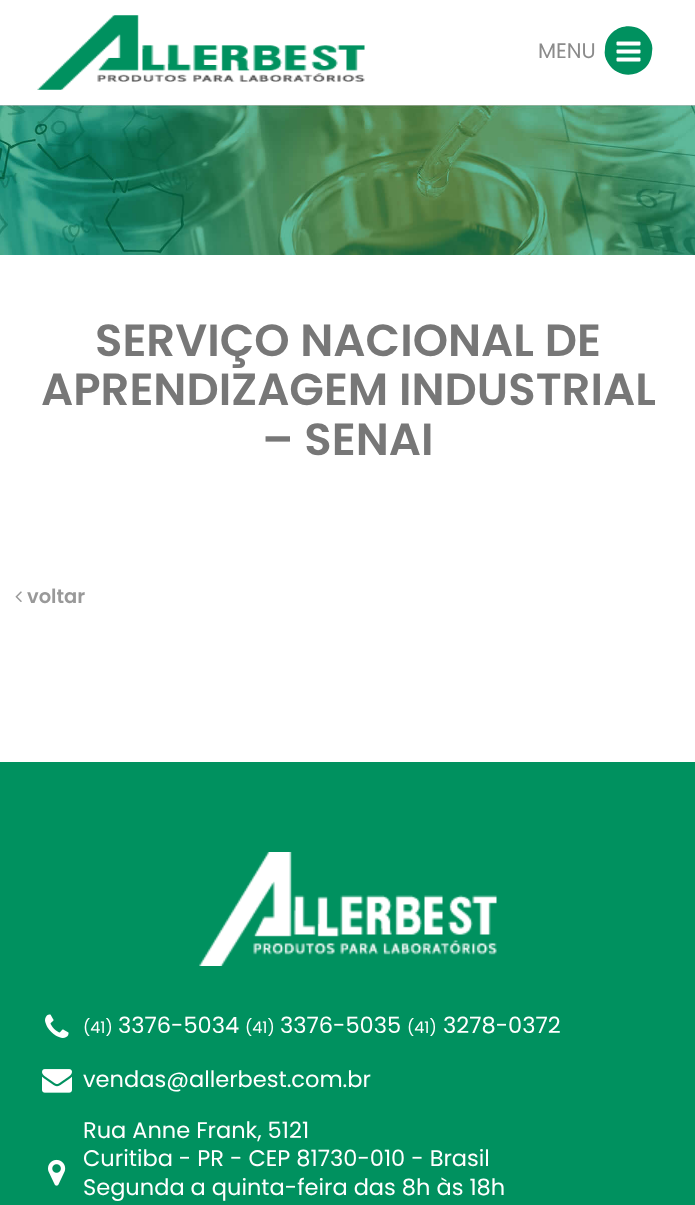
<!DOCTYPE html>
<meta charset="utf-8">
<style>body { margin: 0 } canvas { display: block }</style>
<canvas id="canvas" width="695" height="1205"></canvas>
<script type="module">
  const canvas = document.getElementById("canvas");
  const ctx = canvas.getContext("2d");
  ctx.miterLimit = 4;
  ctx.fontKerning = "normal";
  async function loadImage(src) {
    const img = new Image();
    img.src = src;
    await img.decode();
    return img;
  }

  ctx.fillStyle = "#ffffff";
  ctx.fillRect(0, 0, 695, 1205);
  ctx.drawImage(await loadImage("img1.png"), 37, 15, 328, 75);
  ctx.font = "21px Poppins";
  ctx.fillStyle = "#8b8b8b";
  ctx.fillText("MENU", 538, 58);
  ctx.fillStyle = "#00915f";
  ctx.beginPath();
  ctx.moveTo(649, 38);
  ctx.bezierCurveTo(652, 43, 653, 47, 652, 52);
  ctx.bezierCurveTo(651, 76, 620, 83, 608, 63);
  ctx.bezierCurveTo(605, 58, 604, 54, 605, 49);
  ctx.bezierCurveTo(606, 25, 637, 18, 649, 38);
  ctx.closePath();
  ctx.fill();
  ctx.drawImage(await loadImage("img2.png"), 616, 41, 25, 21);
  ctx.drawImage(await loadImage("img3.png"), 0, 105, 695, 150);
  ctx.font = "600 45px Poppins";
  ctx.fillStyle = "#777777";
  ctx.fillText("SERVIÇO NACIONAL DE", 95, 356);
  ctx.fillText("APRENDIZAGEM INDUSTRIAL", 41, 405);
  ctx.fillText("– SENAI", 262, 455);
  ctx.drawImage(await loadImage("img4.png"), 15, 591, 7, 11);
  ctx.font = "600 19.5px Poppins";
  ctx.fillStyle = "#999999";
  ctx.fillText("voltar", 27, 603);
  ctx.fillStyle = "#00915f";
  ctx.fillRect(0, 762, 695, 443);
  ctx.drawImage(await loadImage("img5.png"), 199, 852, 298, 114);
  ctx.drawImage(await loadImage("img6.png"), 45, 1014, 24, 24);
  ctx.font = "16px Poppins";
  ctx.fillStyle = "#ffffff";
  ctx.fillText("(41)", 83, 1033);
  ctx.font = "22.5px Poppins";
  ctx.fillText("3376-5034", 118, 1033);
  ctx.font = "16px Poppins";
  ctx.fillText("(41)", 245, 1033);
  ctx.font = "22.5px Poppins";
  ctx.fillText("3376-5035", 280, 1033);
  ctx.font = "16px Poppins";
  ctx.fillText("(41)", 407, 1033);
  ctx.font = "22.5px Poppins";
  ctx.fillText("3278-0372", 443, 1033);
  ctx.drawImage(await loadImage("img7.png"), 42, 1069, 30, 24);
  ctx.fillText("vendas@allerbest.com.br", 83, 1087);
  ctx.drawImage(await loadImage("img8.png"), 48, 1159, 18, 27);
  ctx.fillText("Rua Anne Frank, 5121", 83, 1138);
  ctx.fillText("Curitiba - PR - CEP 81730-010 - Brasil", 83, 1166);
  ctx.fillText("Segunda a quinta-feira das 8h às 18h", 83, 1195);
</script>
